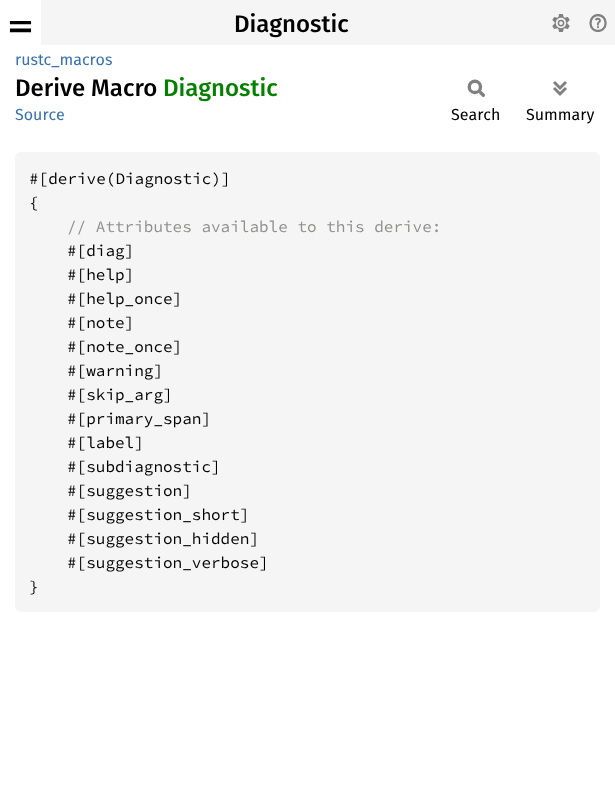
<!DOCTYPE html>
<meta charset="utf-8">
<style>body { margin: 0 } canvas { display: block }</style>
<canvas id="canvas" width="615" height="791"></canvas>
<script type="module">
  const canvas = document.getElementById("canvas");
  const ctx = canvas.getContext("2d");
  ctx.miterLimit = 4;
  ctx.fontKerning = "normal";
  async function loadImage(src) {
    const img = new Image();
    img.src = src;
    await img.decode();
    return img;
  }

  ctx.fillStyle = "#ffffff";
  ctx.fillRect(0, 0, 615, 791);
  ctx.fillStyle = "#f5f5f5";
  ctx.fillRect(41, 0, 574, 45);
  ctx.drawImage(await loadImage("img1.png"), 9, 21, 23, 12);
  ctx.font = "500 24px Fira Sans";
  ctx.fillStyle = "#000000";
  ctx.fillText("Diagnostic", 234, 32);
  ctx.drawImage(await loadImage("img2.png"), 552, 14, 18, 18);
  ctx.drawImage(await loadImage("img3.png"), 589, 14, 18, 18);
  ctx.font = "16px Fira Sans";
  ctx.fillStyle = "#3873ad";
  ctx.fillText("rustc_macros", 15, 65);
  ctx.font = "500 24px Fira Sans";
  ctx.fillStyle = "#000000";
  ctx.fillText("Derive Macro", 15, 96);
  ctx.fillStyle = "#068000";
  ctx.fillText("Diagnostic", 163, 96);
  ctx.font = "16px Fira Sans";
  ctx.fillStyle = "#3873ad";
  ctx.fillText("Source", 15, 120);
  ctx.drawImage(await loadImage("img4.png"), 467, 79, 18, 18);
  ctx.fillStyle = "#000000";
  ctx.fillText("Search", 451, 120);
  ctx.drawImage(await loadImage("img5.png"), 553, 81, 14, 15);
  ctx.fillText("Summary", 526, 120);
  ctx.fillStyle = "#f5f5f5";
  ctx.beginPath();
  ctx.roundRect(15, 152, 585, 460, 6);
  ctx.fill();
  ctx.font = "16px Source Code Pro";
  ctx.fillStyle = "#000000";
  ctx.fillText("#[derive(Diagnostic)]", 29, 184);
  ctx.fillText("{", 29, 208);
  ctx.fillStyle = "#8e908c";
  ctx.fillText("// Attributes available to this derive:", 67, 232);
  ctx.fillStyle = "#000000";
  ctx.fillText("#[diag]", 67, 256);
  ctx.fillText("#[help]", 67, 280);
  ctx.fillText("#[help_once]", 67, 304);
  ctx.fillText("#[note]", 67, 328);
  ctx.fillText("#[note_once]", 67, 352);
  ctx.fillText("#[warning]", 67, 376);
  ctx.fillText("#[skip_arg]", 67, 400);
  ctx.fillText("#[primary_span]", 67, 424);
  ctx.fillText("#[label]", 67, 448);
  ctx.fillText("#[subdiagnostic]", 67, 472);
  ctx.fillText("#[suggestion]", 67, 496);
  ctx.fillText("#[suggestion_short]", 67, 520);
  ctx.fillText("#[suggestion_hidden]", 67, 544);
  ctx.fillText("#[suggestion_verbose]", 67, 568);
  ctx.fillText("}", 29, 592);
</script>
